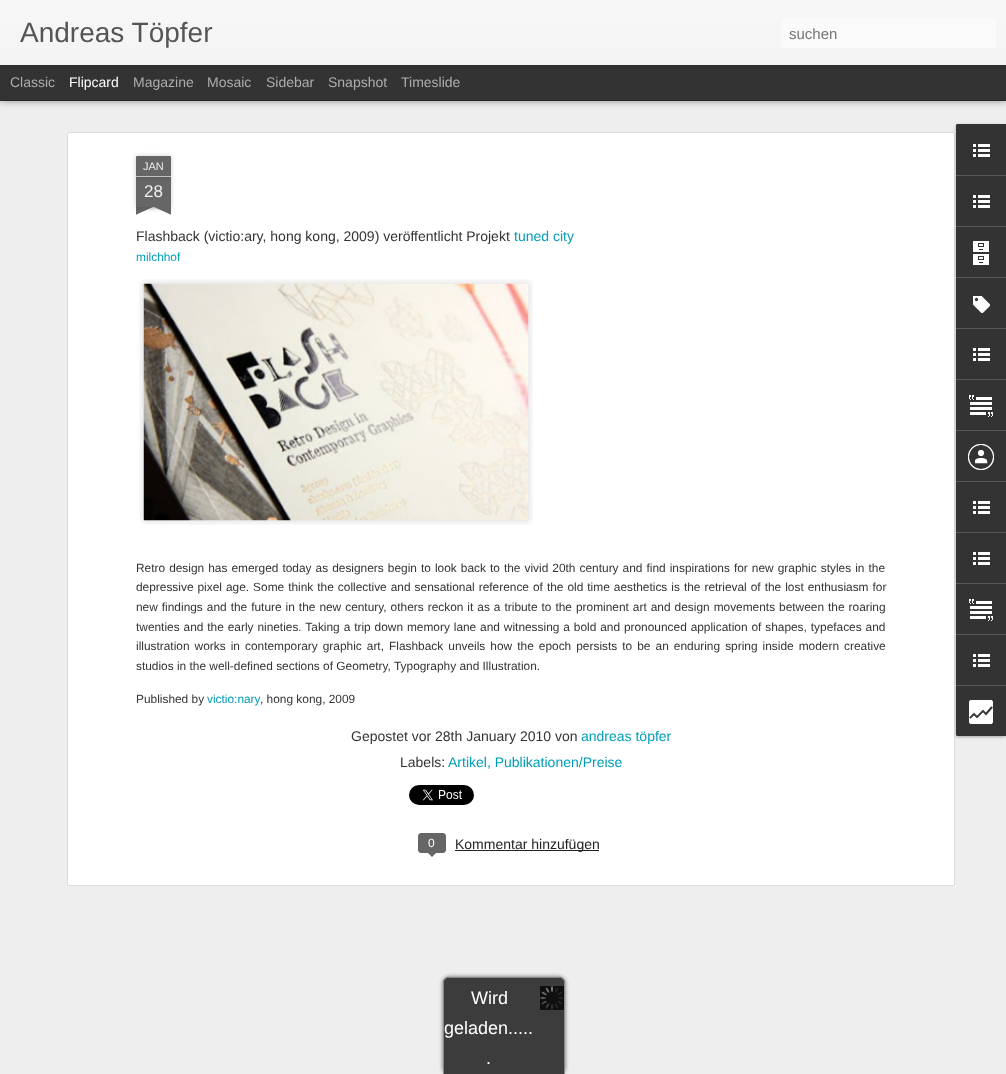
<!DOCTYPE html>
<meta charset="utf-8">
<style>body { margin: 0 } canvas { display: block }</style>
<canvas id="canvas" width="1006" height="1074"></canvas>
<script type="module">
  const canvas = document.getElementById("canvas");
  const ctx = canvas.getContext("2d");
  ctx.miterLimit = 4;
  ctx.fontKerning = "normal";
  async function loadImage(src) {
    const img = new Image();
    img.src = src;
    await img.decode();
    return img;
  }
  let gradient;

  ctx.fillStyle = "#333333";
  ctx.fillRect(0, 0, 1006, 1074);
  ctx.fillStyle = "#eeeeee";
  ctx.fillRect(0, 101, 1006, 973);
  ctx.fillStyle = "rgba(0, 0, 0, 0.5)";
  ctx.filter = "blur(4px)";
  ctx.beginPath();
  ctx.rect(0, 65, 1006, 35);
  ctx.fill();
  ctx.filter = "none";
  ctx.fillStyle = "#333333";
  ctx.fillRect(0, 65, 1006, 35);
  ctx.fillStyle = "rgba(0, 0, 0, 0.3)";
  ctx.filter = "blur(2.5px)";
  ctx.beginPath();
  ctx.rect(0, 0, 1006, 65);
  ctx.fill();
  ctx.filter = "none";
  gradient = ctx.createLinearGradient(0, 0, 0, 65);
  gradient.addColorStop(0, "#f7f7f7");
  gradient.addColorStop(1, "#f4f4f4");
  ctx.fillStyle = gradient;
  ctx.fillRect(0, 0, 1006, 65);
  ctx.font = "28px Liberation Sans";
  ctx.fillStyle = "#555555";
  ctx.fillText("Andreas Töpfer", 20, 42);
  ctx.fillStyle = "#fafafa";
  ctx.beginPath();
  ctx.roundRect(782, 18, 214, 30, 3);
  ctx.fill();
  ctx.font = "15px Liberation Sans";
  ctx.fillStyle = "#757575";
  ctx.fillText("suchen", 789, 39);
  ctx.font = "14px Liberation Sans";
  ctx.fillStyle = "#adadad";
  ctx.fillText("Classic", 10, 87);
  ctx.fillStyle = "#ffffff";
  ctx.fillText("Flipcard", 69, 87);
  ctx.fillStyle = "#adadad";
  ctx.fillText("Magazine", 133, 87);
  ctx.fillText("Mosaic", 207, 87);
  ctx.fillText("Sidebar", 266, 87);
  ctx.fillText("Snapshot", 328, 87);
  ctx.fillText("Timeslide", 401, 87);
  ctx.fillStyle = "#ffffff";
  ctx.fillRect(66, 131, 890, 756);
  ctx.drawImage(await loadImage("img1.png"), 66, 131, 890, 756);
  ctx.fillStyle = "rgba(0, 0, 0, 0.2)";
  ctx.filter = "blur(2.5px)";
  ctx.beginPath();
  ctx.rect(136, 177, 35, 30);
  ctx.fill();
  ctx.filter = "none";
  ctx.fillStyle = "#666666";
  ctx.fillRect(136, 177, 35, 30);
  ctx.fillStyle = "rgba(0, 0, 0, 0.2)";
  ctx.filter = "blur(2.5px)";
  ctx.beginPath();
  ctx.roundRect(136, 156, 35, 21, 1);
  ctx.fill();
  ctx.filter = "none";
  ctx.fillStyle = "#666666";
  ctx.beginPath();
  ctx.roundRect(136, 156, 35, 21, [1, 1, 0, 0]);
  ctx.fill();
  ctx.fillStyle = "#c2c2c2";
  ctx.fillRect(136, 176, 35, 1);
  ctx.font = "11px Liberation Sans";
  ctx.fillStyle = "#eeeeee";
  ctx.fillText("JAN", 143, 170);
  ctx.font = "17px Liberation Sans";
  ctx.fillText("28", 144, 197);
  ctx.save();
  ctx.beginPath();
  ctx.rect(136, 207, 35, 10);
  ctx.clip();
  ctx.fillStyle = "rgba(0, 0, 0, 0.2)";
  ctx.filter = "blur(2.5px)";
  ctx.beginPath();
  ctx.rect(127, 197, 50, 10);
  ctx.fill();
  ctx.filter = "none";
  ctx.restore();
  ctx.save();
  ctx.beginPath();
  ctx.rect(136, 207, 35, 10);
  ctx.clip();
  ctx.fillStyle = "#666666";
  ctx.beginPath();
  ctx.moveTo(127, 208);
  ctx.lineTo(173, 187);
  ctx.lineTo(177, 196);
  ctx.lineTo(131, 217);
  ctx.closePath();
  ctx.fill();
  ctx.restore();
  ctx.save();
  ctx.beginPath();
  ctx.rect(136, 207, 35, 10);
  ctx.clip();
  ctx.fillStyle = "rgba(0, 0, 0, 0.2)";
  ctx.filter = "blur(2.5px)";
  ctx.beginPath();
  ctx.rect(130, 197, 50, 10);
  ctx.fill();
  ctx.filter = "none";
  ctx.restore();
  ctx.save();
  ctx.beginPath();
  ctx.rect(136, 207, 35, 10);
  ctx.clip();
  ctx.fillStyle = "#666666";
  ctx.beginPath();
  ctx.moveTo(134, 187);
  ctx.lineTo(180, 208);
  ctx.lineTo(176, 217);
  ctx.lineTo(130, 196);
  ctx.closePath();
  ctx.fill();
  ctx.restore();
  ctx.font = "14px Liberation Sans";
  ctx.fillStyle = "#333333";
  ctx.fillText("Flashback (victio:ary, hong kong, 2009) veröffentlicht Projekt", 136, 241);
  ctx.fillStyle = "#009eb8";
  ctx.fillText("tuned city", 514, 241);
  ctx.font = "11.9px Liberation Sans";
  ctx.fillText("milchhof", 136, 261);
  ctx.drawImage(await loadImage("img2.png"), 139, 279, 394, 246);
  ctx.drawImage(await loadImage("img3.png"), 143, 283, 386, 238);
  ctx.wordSpacing = "0.75px";
  ctx.fillStyle = "#333333";
  ctx.fillText("Retro design has emerged today as designers begin to look back to the vivid 20th century and find inspirations for new graphic styles in the", 136, 572);
  ctx.wordSpacing = "0.7px";
  ctx.fillText("depressive pixel age. Some think the collective and sensational reference of the old time aesthetics is the retrieval of the lost enthusiasm for", 136, 591);
  ctx.fillText("new findings and the future in the new century, others reckon it as a tribute to the prominent art and design movements between the roaring", 136, 611);
  ctx.wordSpacing = "0.6px";
  ctx.fillText("twenties and the early nineties. Taking a trip down memory lane and witnessing a bold and pronounced application of shapes, typefaces and", 136, 631);
  ctx.wordSpacing = "1.75px";
  ctx.fillText("illustration works in contemporary graphic art, Flashback unveils how the epoch persists to be an enduring spring inside modern creative", 136, 650);
  ctx.wordSpacing = "0px";
  ctx.fillText("studios in the well-defined sections of Geometry, Typography and Illustration.", 136, 670);
  ctx.fillText("Published by", 136, 703);
  ctx.fillStyle = "#009eb8";
  ctx.fillText("victio:nary", 207, 703);
  ctx.fillStyle = "#333333";
  ctx.fillText(", hong kong, 2009", 260, 703);
  ctx.font = "14px Liberation Sans";
  ctx.fillText("Gepostet vor 28th January 2010 von", 351, 741);
  ctx.fillStyle = "#009eb8";
  ctx.fillText("andreas töpfer", 581, 741);
  ctx.fillStyle = "#333333";
  ctx.fillText("Labels:", 400, 767);
  ctx.fillStyle = "#009eb8";
  ctx.fillText("Artikel, Publikationen/Preise", 448, 767);
  ctx.drawImage(await loadImage("img4.png"), 409, 785, 65, 20);
  ctx.fillStyle = "#666666";
  ctx.beginPath();
  ctx.roundRect(418.5, 833.5, 27, 19, 2.5);
  ctx.fill();
  ctx.strokeStyle = "#666666";
  ctx.stroke();
  ctx.font = "12px Liberation Sans";
  ctx.fillStyle = "#ffffff";
  ctx.fillText("0", 428, 847);
  ctx.fillStyle = "#666666";
  ctx.beginPath();
  ctx.moveTo(427, 852);
  ctx.lineTo(437, 852);
  ctx.lineTo(432, 857);
  ctx.closePath();
  ctx.fill();
  ctx.fillStyle = "#222222";
  ctx.fillRect(455, 850, 144, 1);
  ctx.font = "14px Liberation Sans";
  ctx.fillText("Kommentar hinzufügen", 455, 849);
  ctx.fillStyle = "rgba(0, 0, 0, 0.3)";
  ctx.filter = "blur(1.5px)";
  ctx.beginPath();
  ctx.roundRect(956, 125, 50, 612, 2);
  ctx.fill();
  ctx.filter = "none";
  ctx.fillStyle = "#333333";
  ctx.beginPath();
  ctx.roundRect(956, 124, 50, 612, [2, 0, 0, 2]);
  ctx.fill();
  ctx.beginPath();
  ctx.roundRect(956, 124, 50, 51, [2, 0, 0, 0]);
  ctx.fill();
  ctx.drawImage(await loadImage("img5.png"), 973, 144, 17, 13);
  ctx.fillStyle = "#585858";
  ctx.fillRect(956, 175, 50, 1);
  ctx.drawImage(await loadImage("img5.png"), 973, 195, 17, 13);
  ctx.fillRect(956, 226, 50, 1);
  ctx.drawImage(await loadImage("img6.png"), 973, 241, 16, 24);
  ctx.fillRect(956, 277, 50, 1);
  ctx.drawImage(await loadImage("img7.png"), 973, 296, 17, 17);
  ctx.fillRect(956, 328, 50, 1);
  ctx.drawImage(await loadImage("img5.png"), 973, 348, 17, 13);
  ctx.fillRect(956, 379, 50, 1);
  ctx.drawImage(await loadImage("img8.png"), 969, 395, 24, 22);
  ctx.fillRect(956, 430, 50, 1);
  ctx.drawImage(await loadImage("img9.png"), 968, 444, 26, 26);
  ctx.fillRect(956, 481, 50, 1);
  ctx.drawImage(await loadImage("img5.png"), 973, 501, 17, 13);
  ctx.fillRect(956, 532, 50, 1);
  ctx.drawImage(await loadImage("img5.png"), 973, 552, 17, 13);
  ctx.fillRect(956, 583, 50, 1);
  ctx.drawImage(await loadImage("img8.png"), 969, 599, 24, 22);
  ctx.fillRect(956, 634, 50, 1);
  ctx.drawImage(await loadImage("img5.png"), 973, 654, 17, 13);
  ctx.fillStyle = "#333333";
  ctx.beginPath();
  ctx.roundRect(956, 685, 50, 51, [0, 0, 0, 2]);
  ctx.fill();
  ctx.fillStyle = "#585858";
  ctx.fillRect(956, 685, 50, 1);
  ctx.drawImage(await loadImage("img10.png"), 969, 700, 24, 24);
  ctx.fillStyle = "#626262";
  ctx.filter = "blur(2px)";
  ctx.beginPath();
  ctx.roundRect(443, 977, 122, 97, 6);
  ctx.fill();
  ctx.filter = "none";
  ctx.fillStyle = "#3c3c3c";
  ctx.beginPath();
  ctx.roundRect(443, 977, 122, 97, [6, 6, 0, 0]);
  ctx.fill();
  ctx.fillStyle = "#888888";
  ctx.beginPath();
  ctx.moveTo(449, 977);
  ctx.lineTo(559, 977);
  ctx.bezierCurveTo(562, 977, 565, 980, 565, 983);
  ctx.lineTo(565, 1074);
  ctx.lineTo(443, 1074);
  ctx.lineTo(443, 983);
  ctx.bezierCurveTo(443, 980, 446, 977, 449, 977);
  ctx.closePath();
  ctx.moveTo(449, 978);
  ctx.lineTo(559, 978);
  ctx.bezierCurveTo(562, 978, 564, 980, 564, 983);
  ctx.lineTo(564, 1074);
  ctx.lineTo(444, 1074);
  ctx.lineTo(444, 983);
  ctx.bezierCurveTo(444, 980, 446, 978, 449, 978);
  ctx.closePath();
  ctx.fill("evenodd");
  ctx.drawImage(await loadImage("img11.png"), 540, 986, 24, 24);
  ctx.font = "18px Liberation Sans";
  ctx.fillStyle = "#ffffff";
  ctx.fillText("Wird", 471, 1004);
  ctx.fillText("geladen.....", 444, 1034);
  ctx.fillText(".", 486, 1064);
</script>
